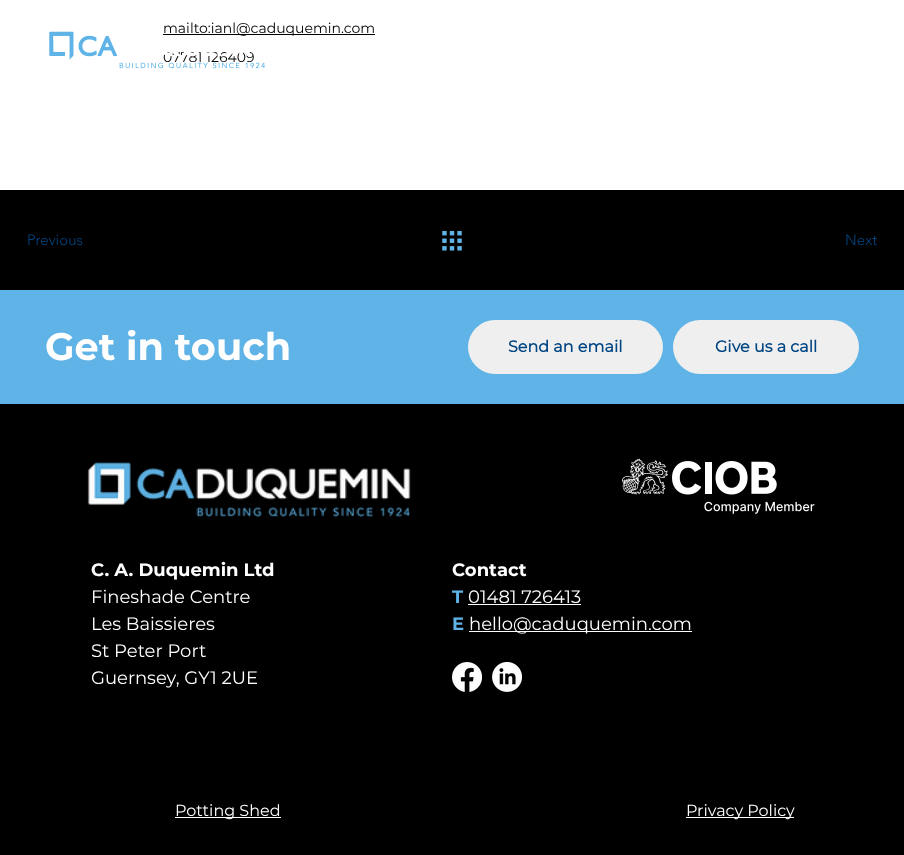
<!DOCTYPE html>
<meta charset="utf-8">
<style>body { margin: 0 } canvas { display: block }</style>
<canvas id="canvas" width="904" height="855"></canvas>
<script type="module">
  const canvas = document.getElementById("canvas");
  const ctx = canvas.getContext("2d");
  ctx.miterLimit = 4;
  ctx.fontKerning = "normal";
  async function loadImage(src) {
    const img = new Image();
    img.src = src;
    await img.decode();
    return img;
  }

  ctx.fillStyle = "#ffffff";
  ctx.fillRect(0, 0, 904, 855);
  ctx.fillStyle = "#000000";
  ctx.fillRect(163, 34, 212, 1);
  ctx.font = "14px Montserrat";
  ctx.fillText("mailto:ianl@caduquemin.com", 163, 33);
  ctx.fillText("07781 126409", 163, 62);
  ctx.fillRect(0, 190, 904, 100);
  ctx.font = "300 15px 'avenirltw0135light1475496'";
  ctx.fillStyle = "#004583";
  ctx.fillText("Previous", 27, 245);
  ctx.drawImage(await loadImage("img1.png"), 442, 231, 20, 20);
  ctx.fillText("Next", 845, 245);
  ctx.fillStyle = "#5fb3e6";
  ctx.fillRect(0, 290, 904, 114);
  ctx.font = "bold 38.25px Montserrat";
  ctx.fillStyle = "#ffffff";
  ctx.fillText("Get in touch", 45, 360);
  ctx.fillStyle = "#efefef";
  ctx.beginPath();
  ctx.roundRect(468, 320, 195, 54, 27);
  ctx.fill();
  ctx.font = "bold 16px 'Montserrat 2'";
  ctx.fillStyle = "#004583";
  ctx.fillText("Send an email", 508, 352);
  ctx.fillStyle = "#efefef";
  ctx.beginPath();
  ctx.roundRect(673, 320, 186, 54, 27);
  ctx.fill();
  ctx.fillStyle = "#004583";
  ctx.fillText("Give us a call", 715, 352);
  ctx.drawImage(await loadImage("img2.png"), 49, 31, 216, 38);
  ctx.fillStyle = "#000000";
  ctx.fillRect(0, 404, 904, 451);
  ctx.drawImage(await loadImage("img3.png"), 87, 462, 324, 56);
  ctx.drawImage(await loadImage("img4.png"), 622, 458, 193, 56);
  ctx.font = "bold 18px Montserrat";
  ctx.fillStyle = "#ffffff";
  ctx.fillText("C. A. Duquemin Ltd", 91, 576);
  ctx.font = "18px Montserrat";
  ctx.fillText("Fineshade Centre", 91, 603);
  ctx.fillText("Les Baissieres", 91, 630);
  ctx.fillText("St Peter Port", 91, 657);
  ctx.fillText("Guernsey, GY1 2UE", 91, 684);
  ctx.font = "bold 18px Montserrat";
  ctx.fillText("Contact", 452, 576);
  ctx.fillStyle = "#5fb3e6";
  ctx.fillText("T", 452, 603);
  ctx.font = "18px Montserrat";
  ctx.fillStyle = "#ffffff";
  ctx.fillText("01481 726413", 468, 603);
  ctx.fillRect(468, 604, 113, 1);
  ctx.font = "bold 18px Montserrat";
  ctx.fillStyle = "#5fb3e6";
  ctx.fillText("E", 452, 630);
  ctx.fillStyle = "#ffffff";
  ctx.fillRect(469, 631, 223, 1);
  ctx.font = "18px Montserrat";
  ctx.fillText("hello@caduquemin.com", 469, 630);
  ctx.drawImage(await loadImage("img5.png"), 452, 662, 30, 30);
  ctx.drawImage(await loadImage("img6.png"), 492, 662, 30, 30);
  ctx.fillRect(175, 817, 106, 1);
  ctx.font = "16px Montserrat";
  ctx.fillText("Potting Shed", 175, 816);
  ctx.fillRect(686, 817, 108, 1);
  ctx.fillText("Privacy Policy", 686, 816);
</script>
